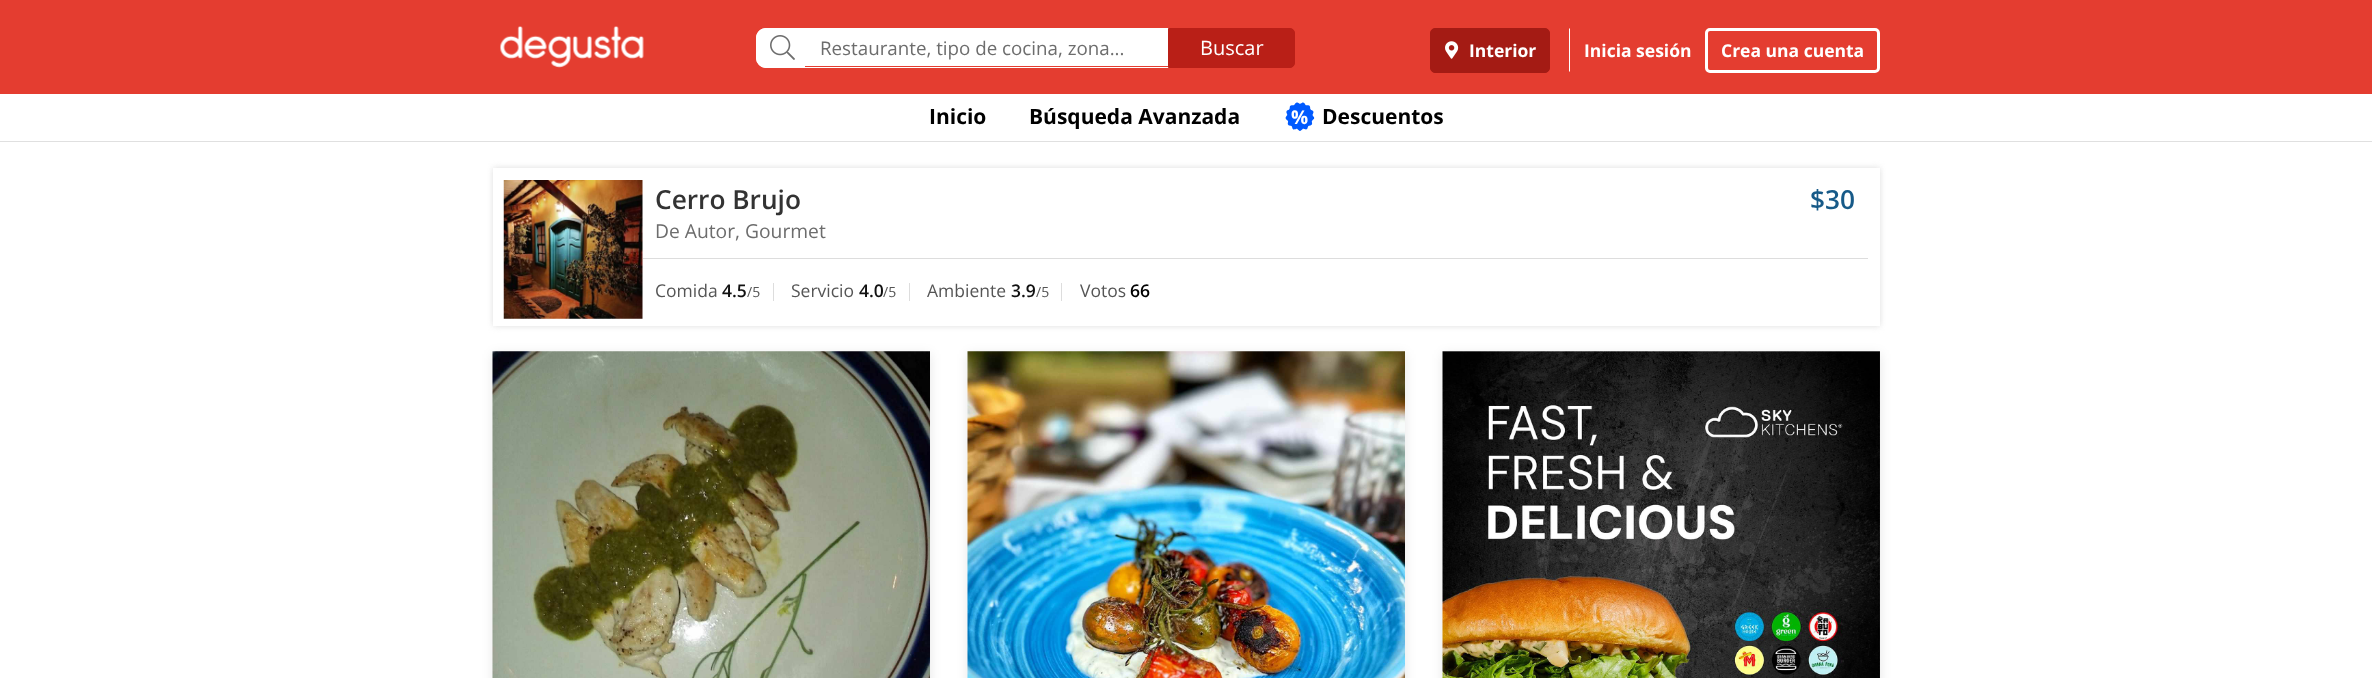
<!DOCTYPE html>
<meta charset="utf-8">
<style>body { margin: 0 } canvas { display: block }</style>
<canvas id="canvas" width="2372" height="678"></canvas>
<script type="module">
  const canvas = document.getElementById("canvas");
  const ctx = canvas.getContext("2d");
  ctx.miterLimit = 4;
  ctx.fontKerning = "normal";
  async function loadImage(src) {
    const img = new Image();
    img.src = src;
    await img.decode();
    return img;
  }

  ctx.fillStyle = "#ffffff";
  ctx.fillRect(0, 0, 2372, 678);
  ctx.fillStyle = "#e43d30";
  ctx.fillRect(0, 0, 2372, 94);
  ctx.drawImage(await loadImage("img1.png"), 500, 26, 144, 42);
  ctx.fillStyle = "#ffffff";
  ctx.beginPath();
  ctx.roundRect(756, 28, 48, 40, [10, 0, 0, 10]);
  ctx.fill();
  ctx.beginPath();
  ctx.moveTo(766, 28);
  ctx.lineTo(804, 28);
  ctx.lineTo(804, 68);
  ctx.lineTo(766, 68);
  ctx.bezierCurveTo(761, 68, 756, 63, 756, 58);
  ctx.lineTo(756, 38);
  ctx.bezierCurveTo(756, 32, 761, 28, 766, 28);
  ctx.closePath();
  ctx.moveTo(766, 29);
  ctx.lineTo(804, 29);
  ctx.lineTo(804, 66);
  ctx.lineTo(766, 66);
  ctx.bezierCurveTo(761, 66, 758, 62, 758, 58);
  ctx.lineTo(758, 38);
  ctx.bezierCurveTo(758, 33, 761, 29, 766, 29);
  ctx.closePath();
  ctx.fill("evenodd");
  ctx.drawImage(await loadImage("img2.png"), 770, 35, 25, 25);
  ctx.fillRect(805, 29, 363, 37);
  ctx.strokeStyle = "#ffffff";
  ctx.strokeRect(804.5, 28.5, 364, 39);
  ctx.font = "18.75px Open Sans";
  ctx.fillStyle = "#6d6d6d";
  ctx.fillText("Restaurante, tipo de cocina, zona...", 820, 55);
  ctx.fillStyle = "#b91f17";
  ctx.beginPath();
  ctx.roundRect(1168.5, 28.5, 126, 39, [0, 4.5, 4.5, 0]);
  ctx.fill();
  ctx.strokeStyle = "#b91f17";
  ctx.stroke();
  ctx.font = "20px Open Sans";
  ctx.fillStyle = "#ffffff";
  ctx.fillText("Buscar", 1200, 55);
  ctx.fillStyle = "#a41b14";
  ctx.beginPath();
  ctx.roundRect(1430.5, 28.5, 119, 44, 4.5);
  ctx.fill();
  ctx.strokeStyle = "#a41b14";
  ctx.stroke();
  ctx.drawImage(await loadImage("img3.png"), 1445, 41, 14, 18);
  ctx.font = "bold 17.5px Open Sans";
  ctx.fillStyle = "#ffffff";
  ctx.fillText("Interior", 1469, 57);
  ctx.beginPath();
  ctx.moveTo(1569, 72);
  ctx.lineTo(1569, 28);
  ctx.lineTo(1570, 29);
  ctx.lineTo(1570, 71);
  ctx.closePath();
  ctx.fill();
  ctx.fillText("Inicia sesión", 1584, 57);
  ctx.beginPath();
  ctx.roundRect(1706.5, 29.5, 172, 42, 3.5);
  ctx.strokeStyle = "#ffffff";
  ctx.lineWidth = 3;
  ctx.stroke();
  ctx.fillText("Crea una cuenta", 1721, 57);
  ctx.fillStyle = "#e0e0e0";
  ctx.fillRect(0, 141, 2372, 1);
  ctx.font = "bold 21px Open Sans";
  ctx.fillStyle = "#000000";
  ctx.fillText("Inicio", 929, 124);
  ctx.fillText("Búsqueda Avanzada", 1029, 124);
  ctx.drawImage(await loadImage("img4.png"), 1285, 102, 30, 29);
  ctx.font = "bold 19px Open Sans";
  ctx.fillStyle = "#ffffff";
  ctx.fillText("%", 1291, 124);
  ctx.font = "bold 21px Open Sans";
  ctx.fillStyle = "#000000";
  ctx.fillText("Descuentos", 1322, 124);
  ctx.save();
  ctx.beginPath();
  ctx.moveTo(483, 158);
  ctx.lineTo(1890, 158);
  ctx.lineTo(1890, 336);
  ctx.lineTo(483, 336);
  ctx.closePath();
  ctx.moveTo(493, 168);
  ctx.lineTo(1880, 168);
  ctx.lineTo(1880, 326);
  ctx.lineTo(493, 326);
  ctx.closePath();
  ctx.clip("evenodd");
  ctx.fillStyle = "#dddddd";
  ctx.filter = "blur(3px)";
  ctx.beginPath();
  ctx.rect(493, 168, 1387, 158);
  ctx.fill();
  ctx.filter = "none";
  ctx.restore();
  ctx.drawImage(await loadImage("img5.png"), 503, 180, 140, 139);
  ctx.font = "600 26.25px Open Sans";
  ctx.fillStyle = "#333333";
  ctx.fillText("Cerro Brujo", 655, 209);
  ctx.font = "19.25px Open Sans";
  ctx.fillStyle = "#6d6d6d";
  ctx.fillText("De Autor, Gourmet", 655, 238);
  ctx.font = "600 26.25px Open Sans";
  ctx.fillStyle = "#175a88";
  ctx.fillText("$30", 1810, 209);
  ctx.fillStyle = "#dddddd";
  ctx.fillRect(643, 258, 1225, 1);
  ctx.font = "17.5px Open Sans";
  ctx.fillStyle = "#555555";
  ctx.fillText("Comida", 655, 297);
  ctx.font = "600 17.5px Open Sans";
  ctx.fillStyle = "#111111";
  ctx.fillText("4.5", 722, 297);
  ctx.font = "14px Open Sans";
  ctx.fillStyle = "#555555";
  ctx.fillText("/5", 747, 297);
  ctx.fillStyle = "#dddddd";
  ctx.fillRect(773, 283, 1, 18);
  ctx.font = "17.5px Open Sans";
  ctx.fillStyle = "#555555";
  ctx.fillText("Servicio", 791, 297);
  ctx.font = "600 17.5px Open Sans";
  ctx.fillStyle = "#111111";
  ctx.fillText("4.0", 859, 297);
  ctx.font = "14px Open Sans";
  ctx.fillStyle = "#555555";
  ctx.fillText("/5", 883, 297);
  ctx.fillStyle = "#dddddd";
  ctx.fillRect(909, 283, 1, 18);
  ctx.font = "17.5px Open Sans";
  ctx.fillStyle = "#555555";
  ctx.fillText("Ambiente", 927, 297);
  ctx.font = "600 17.5px Open Sans";
  ctx.fillStyle = "#111111";
  ctx.fillText("3.9", 1011, 297);
  ctx.font = "14px Open Sans";
  ctx.fillStyle = "#555555";
  ctx.fillText("/5", 1036, 297);
  ctx.fillStyle = "#dddddd";
  ctx.fillRect(1061, 283, 1, 18);
  ctx.font = "17.5px Open Sans";
  ctx.fillStyle = "#555555";
  ctx.fillText("Votos", 1080, 297);
  ctx.font = "600 17.5px Open Sans";
  ctx.fillStyle = "#000000";
  ctx.fillText("66", 1130, 297);
  ctx.fillStyle = "rgba(0, 0, 0, 0.1)";
  ctx.filter = "blur(6px)";
  ctx.beginPath();
  ctx.rect(493, 354, 437, 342);
  ctx.fill();
  ctx.filter = "none";
  ctx.drawImage(await loadImage("img6.png"), 492, 351, 438, 327);
  ctx.filter = "blur(6px)";
  ctx.beginPath();
  ctx.rect(968, 354, 437, 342);
  ctx.fill();
  ctx.filter = "none";
  ctx.drawImage(await loadImage("img7.png"), 967, 351, 438, 327);
  ctx.filter = "blur(6px)";
  ctx.beginPath();
  ctx.rect(1443, 354, 437, 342);
  ctx.fill();
  ctx.filter = "none";
  ctx.drawImage(await loadImage("img8.png"), 1442, 351, 438, 327);
</script>
